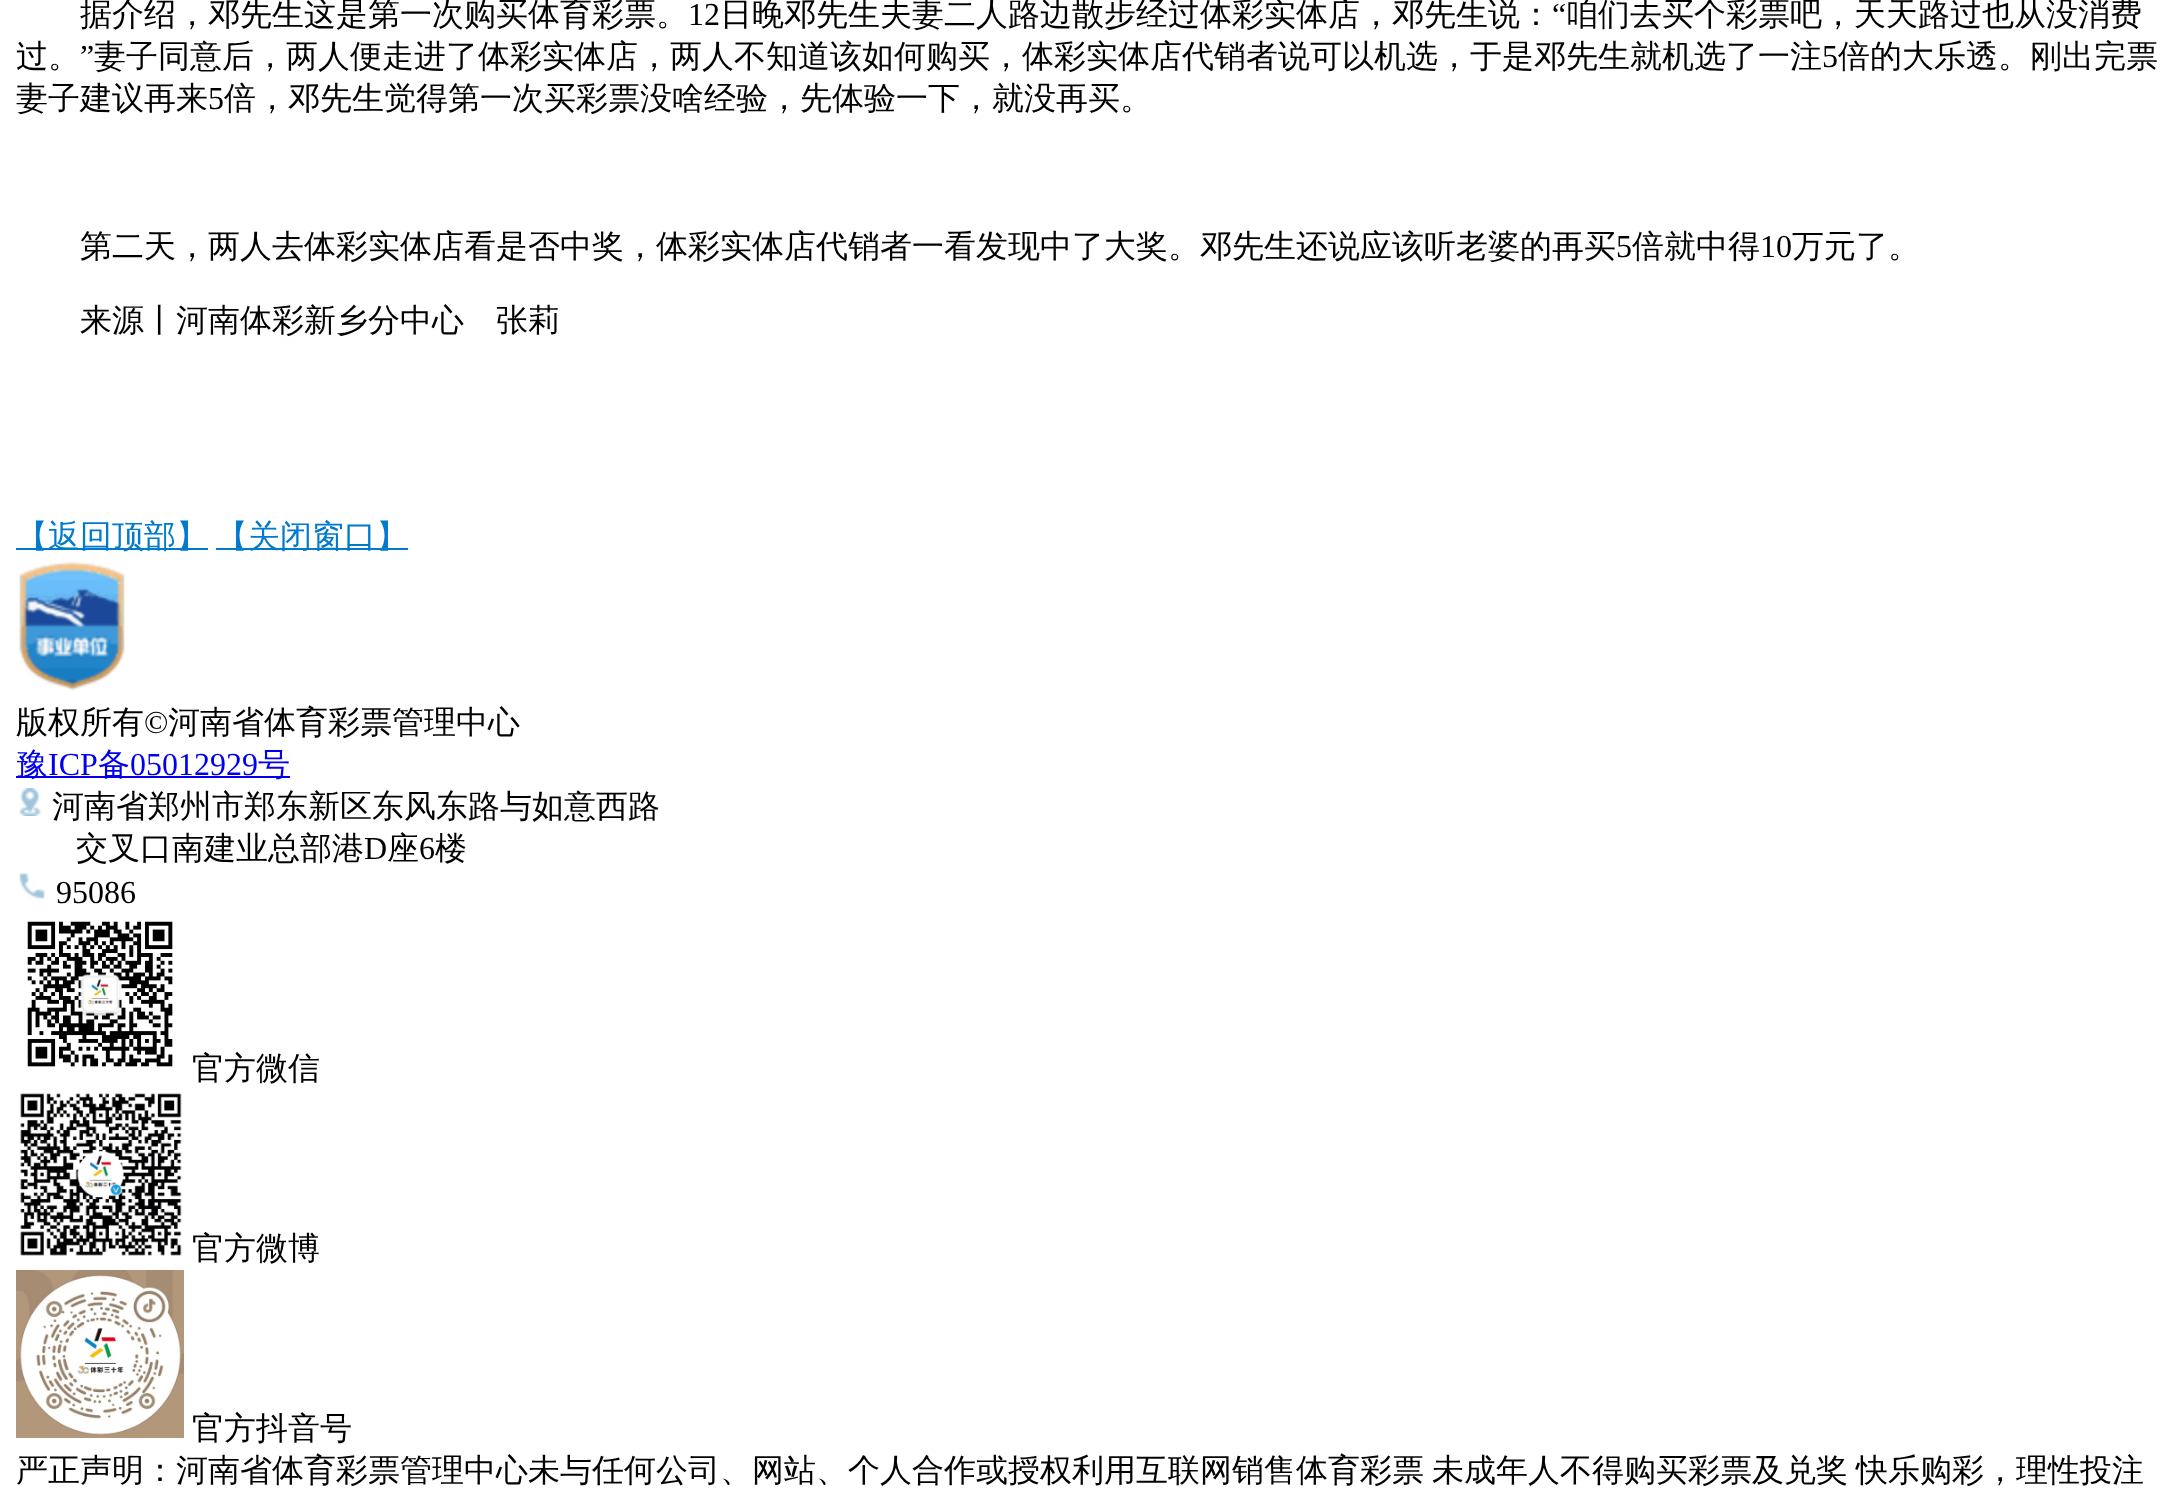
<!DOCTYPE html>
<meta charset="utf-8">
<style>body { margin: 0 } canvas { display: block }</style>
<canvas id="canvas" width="2182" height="1507"></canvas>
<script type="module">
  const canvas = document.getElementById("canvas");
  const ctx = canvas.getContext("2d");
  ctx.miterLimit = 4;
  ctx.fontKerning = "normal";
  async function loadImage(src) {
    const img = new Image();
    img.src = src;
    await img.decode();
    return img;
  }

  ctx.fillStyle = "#ffffff";
  ctx.fillRect(0, 0, 2182, 1507);
  ctx.font = "500 32px WenQuanYi Zen Hei";
  ctx.fillStyle = "#000000";
  ctx.fillText("据介绍，邓先生这是第一次购买体育彩票。", 80, 25);
  ctx.font = "32px Liberation Serif";
  ctx.fillText("12", 688, 25);
  ctx.font = "500 32px WenQuanYi Zen Hei";
  ctx.fillText("日晚邓先生夫妻二人路边散步经过体彩实体店，邓先生说：", 720, 25);
  ctx.font = "32px Liberation Serif";
  ctx.fillText("“", 1552, 25);
  ctx.font = "500 32px WenQuanYi Zen Hei";
  ctx.fillText("咱们去买个彩票吧，天天路过也从没消费", 1566, 25);
  ctx.fillText("过。", 16, 67);
  ctx.font = "32px Liberation Serif";
  ctx.fillText("”", 80, 67);
  ctx.font = "500 32px WenQuanYi Zen Hei";
  ctx.fillText("妻子同意后，两人便走进了体彩实体店，两人不知道该如何购买，体彩实体店代销者说可以机选，于是邓先生就机选了一注", 94, 67);
  ctx.font = "32px Liberation Serif";
  ctx.fillText("5", 1822, 67);
  ctx.font = "500 32px WenQuanYi Zen Hei";
  ctx.fillText("倍的大乐透。刚出完票", 1838, 67);
  ctx.fillText("妻子建议再来", 16, 109);
  ctx.font = "32px Liberation Serif";
  ctx.fillText("5", 208, 109);
  ctx.font = "500 32px WenQuanYi Zen Hei";
  ctx.fillText("倍，邓先生觉得第一次买彩票没啥经验，先体验一下，就没再买。", 224, 109);
  ctx.fillText("第二天，两人去体彩实体店看是否中奖，体彩实体店代销者一看发现中了大奖。邓先生还说应该听老婆的再买", 80, 257);
  ctx.font = "32px Liberation Serif";
  ctx.fillText("5", 1616, 257);
  ctx.font = "500 32px WenQuanYi Zen Hei";
  ctx.fillText("倍就中得", 1632, 257);
  ctx.font = "32px Liberation Serif";
  ctx.fillText("10", 1760, 257);
  ctx.font = "500 32px WenQuanYi Zen Hei";
  ctx.fillText("万元了。", 1792, 257);
  ctx.fillText("来源丨河南体彩新乡分中心", 80, 331);
  ctx.fillText("张莉", 496, 331);
  ctx.fillStyle = "#007acd";
  ctx.fillRect(16, 548, 192, 2);
  ctx.fillText("【返回顶部】", 16, 547);
  ctx.fillRect(216, 548, 192, 2);
  ctx.fillText("【关闭窗口】", 216, 547);
  ctx.drawImage(await loadImage("img1.png"), 19, 561, 106, 130);
  ctx.fillStyle = "#000000";
  ctx.fillText("版权所有", 16, 733);
  ctx.font = "32px Liberation Serif";
  ctx.fillText("©", 144, 733);
  ctx.font = "500 32px WenQuanYi Zen Hei";
  ctx.fillText("河南省体育彩票管理中心", 168, 733);
  ctx.fillStyle = "#0000ee";
  ctx.fillRect(16, 776, 274, 2);
  ctx.fillText("豫", 16, 775);
  ctx.font = "32px Liberation Serif";
  ctx.fillText("ICP", 48, 775);
  ctx.font = "500 32px WenQuanYi Zen Hei";
  ctx.fillText("备", 98, 775);
  ctx.font = "32px Liberation Serif";
  ctx.fillText("05012929", 130, 775);
  ctx.font = "500 32px WenQuanYi Zen Hei";
  ctx.fillText("号", 258, 775);
  ctx.drawImage(await loadImage("img2.png"), 19, 788, 22, 28);
  ctx.fillStyle = "#000000";
  ctx.fillText("河南省郑州市郑东新区东风东路与如意西路", 52, 817);
  ctx.fillText("交叉口南建业总部港", 76, 859);
  ctx.font = "32px Liberation Serif";
  ctx.fillText("D", 364, 859);
  ctx.font = "500 32px WenQuanYi Zen Hei";
  ctx.fillText("座", 387, 859);
  ctx.font = "32px Liberation Serif";
  ctx.fillText("6", 419, 859);
  ctx.font = "500 32px WenQuanYi Zen Hei";
  ctx.fillText("楼", 435, 859);
  ctx.drawImage(await loadImage("img3.png"), 19, 872, 27, 27);
  ctx.font = "32px Liberation Serif";
  ctx.fillText("95086", 56, 903);
  ctx.drawImage(await loadImage("img4.png"), 27, 921, 146, 146);
  ctx.font = "500 32px WenQuanYi Zen Hei";
  ctx.fillText("官方微信", 192, 1079);
  ctx.drawImage(await loadImage("img5.png"), 16, 1090, 166, 166);
  ctx.fillText("官方微博", 192, 1259);
  ctx.drawImage(await loadImage("img6.png"), 16, 1270, 168, 168);
  ctx.fillText("官方抖音号", 192, 1439);
  ctx.fillText("严正声明：河南省体育彩票管理中心未与任何公司、网站、个人合作或授权利用互联网销售体育彩票", 16, 1481);
  ctx.fillText("未成年人不得购买彩票及兑奖", 1432, 1481);
  ctx.fillText("快乐购彩，理性投注", 1856, 1481);
</script>
